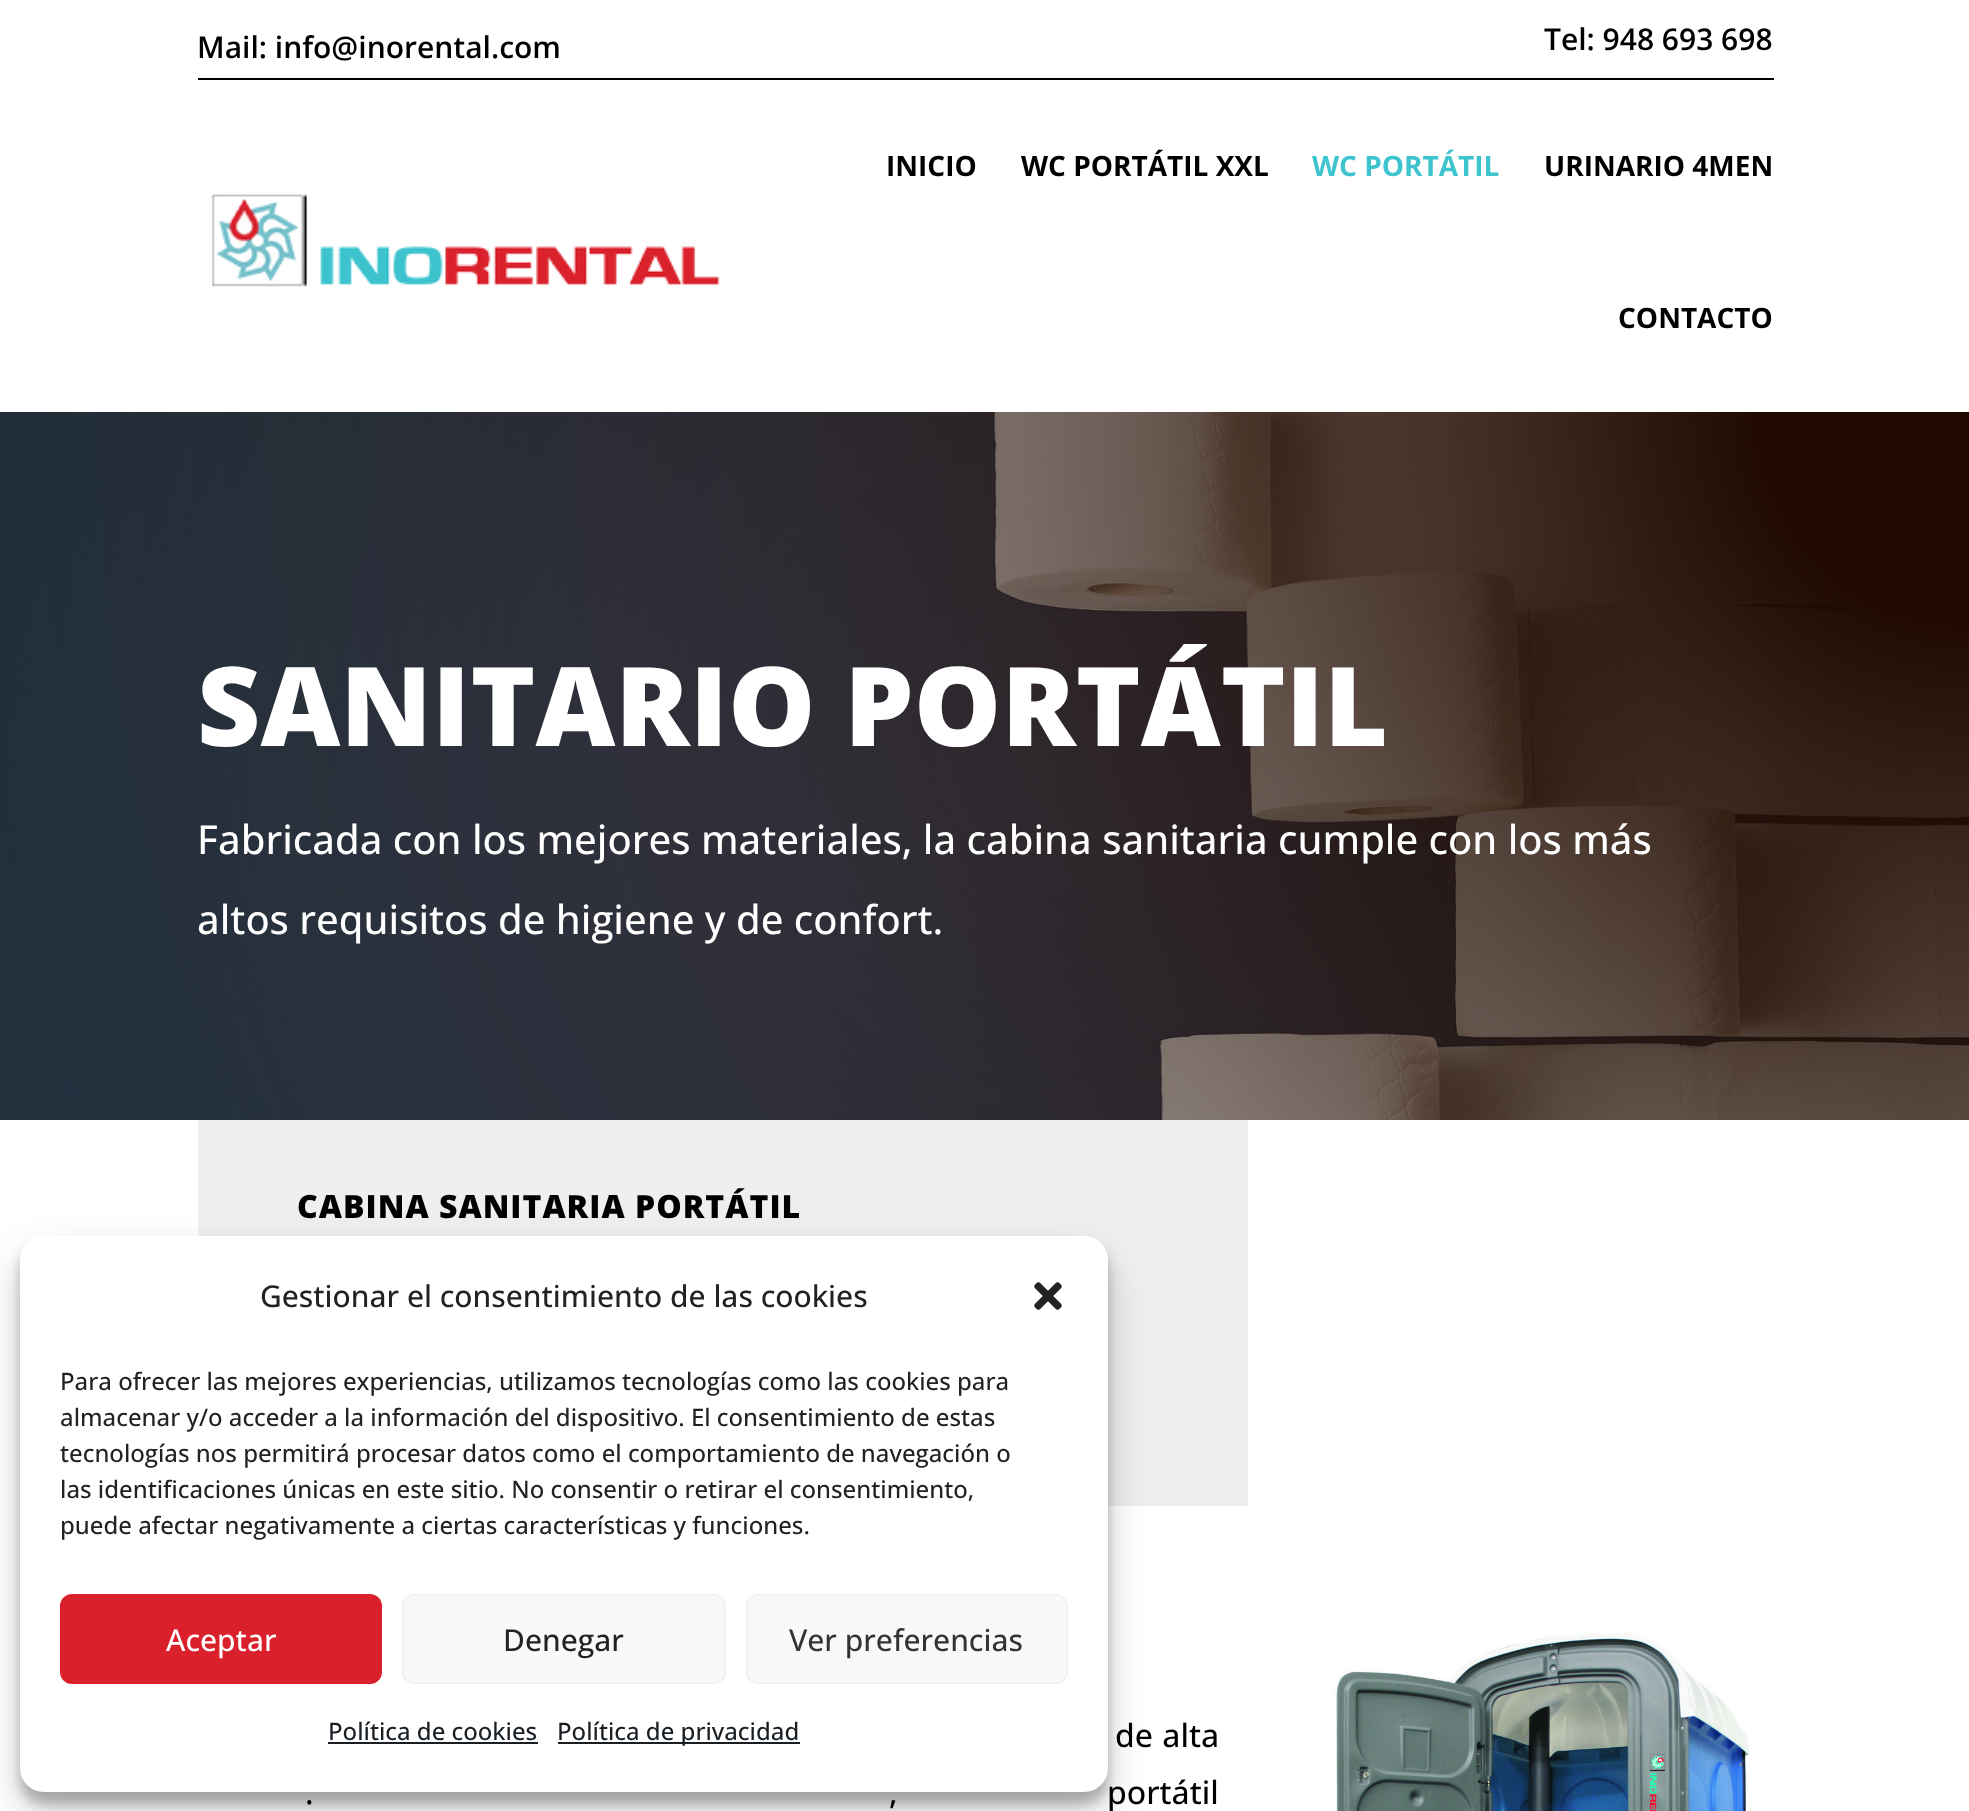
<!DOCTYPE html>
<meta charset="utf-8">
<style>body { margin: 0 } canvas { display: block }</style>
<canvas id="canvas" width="1969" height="1811"></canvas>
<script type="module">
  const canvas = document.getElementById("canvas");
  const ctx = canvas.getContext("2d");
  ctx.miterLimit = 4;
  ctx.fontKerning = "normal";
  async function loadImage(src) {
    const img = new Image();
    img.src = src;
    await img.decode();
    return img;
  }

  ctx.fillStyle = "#ffffff";
  ctx.fillRect(0, 0, 1969, 1811);
  ctx.fillStyle = "#000000";
  ctx.fillRect(198, 78, 1576, 2);
  ctx.font = "600 30px Open Sans";
  ctx.fillText("Mail: info@inorental.com", 197, 58);
  ctx.fillText("Tel: 948 693 698", 1544, 50);
  ctx.drawImage(await loadImage("img1.png"), 211, 194, 509, 93);
  ctx.font = "bold 28px Open Sans";
  ctx.fillText("INICIO", 886, 176);
  ctx.fillText("WC PORTÁTIL XXL", 1021, 176);
  ctx.fillStyle = "#3dc4cf";
  ctx.fillText("WC PORTÁTIL", 1312, 176);
  ctx.fillStyle = "#000000";
  ctx.fillText("URINARIO 4MEN", 1544, 176);
  ctx.fillText("CONTACTO", 1618, 328);
  ctx.drawImage(await loadImage("img2.png"), 0, 412, 1969, 708);
  ctx.font = "800 110px Open Sans";
  ctx.fillStyle = "#ffffff";
  ctx.fillText("SANITARIO PORTÁTIL", 197, 746);
  ctx.font = "500 40px Open Sans";
  ctx.fillText("Fabricada con los mejores materiales, la cabina sanitaria cumple con los más", 197, 854);
  ctx.fillText("altos requisitos de higiene y de confort.", 197, 934);
  ctx.fillStyle = "#efefef";
  ctx.fillRect(198, 1120, 1050, 386);
  ctx.letterSpacing = "1px";
  ctx.font = "800 32px Open Sans";
  ctx.fillStyle = "#000000";
  ctx.fillText("CABINA SANITARIA PORTÁTIL", 297, 1218);
  ctx.letterSpacing = "0px";
  ctx.wordSpacing = "1px";
  ctx.font = "500 32px Open Sans";
  ctx.fillText("de alta", 1115, 1747);
  ctx.wordSpacing = "0px";
  ctx.fillText(".", 305, 1804);
  ctx.fillText(",", 889, 1804);
  ctx.fillText("portátil", 1107, 1804);
  ctx.drawImage(await loadImage("img3.png"), 1333, 1632, 418, 179);
  ctx.fillStyle = "rgba(0, 0, 0, 0.23)";
  ctx.filter = "blur(6px)";
  ctx.beginPath();
  ctx.roundRect(20, 1248, 1088, 556, 24);
  ctx.fill();
  ctx.filter = "none";
  ctx.fillStyle = "rgba(0, 0, 0, 0.19)";
  ctx.filter = "blur(20px)";
  ctx.beginPath();
  ctx.roundRect(20, 1256, 1088, 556, 24);
  ctx.fill();
  ctx.filter = "none";
  ctx.fillStyle = "#ffffff";
  ctx.beginPath();
  ctx.roundRect(20, 1236, 1088, 556, 24);
  ctx.fill();
  ctx.font = "500 30px Open Sans";
  ctx.fillStyle = "#222222";
  ctx.fillText("Gestionar el consentimiento de las cookies", 260, 1307);
  ctx.drawImage(await loadImage("img4.png"), 1034, 1282, 28, 28);
  ctx.font = "500 24px Open Sans";
  ctx.fillText("Para ofrecer las mejores experiencias, utilizamos tecnologías como las cookies para", 60, 1390);
  ctx.fillText("almacenar y/o acceder a la información del dispositivo. El consentimiento de estas", 60, 1426);
  ctx.fillText("tecnologías nos permitirá procesar datos como el comportamiento de navegación o", 60, 1462);
  ctx.fillText("las identificaciones únicas en este sitio. No consentir o retirar el consentimiento,", 60, 1498);
  ctx.fillText("puede afectar negativamente a ciertas características y funciones.", 60, 1534);
  ctx.fillStyle = "#da202b";
  ctx.beginPath();
  ctx.roundRect(61, 1595, 320, 88, 11);
  ctx.fill();
  ctx.strokeStyle = "#da202b";
  ctx.lineWidth = 2;
  ctx.stroke();
  ctx.font = "500 30px Open Sans";
  ctx.fillStyle = "#ffffff";
  ctx.fillText("Aceptar", 166, 1651);
  ctx.fillStyle = "#f9f9f9";
  ctx.beginPath();
  ctx.roundRect(403, 1595, 322, 88, 11);
  ctx.fill();
  ctx.strokeStyle = "#f2f2f2";
  ctx.stroke();
  ctx.fillStyle = "#222222";
  ctx.fillText("Denegar", 503, 1651);
  ctx.fillStyle = "#f9f9f9";
  ctx.beginPath();
  ctx.roundRect(747, 1595, 320, 88, 11);
  ctx.fill();
  ctx.stroke();
  ctx.fillStyle = "#333333";
  ctx.fillText("Ver preferencias", 789, 1651);
  ctx.font = "500 24px Open Sans";
  ctx.fillStyle = "#191e23";
  ctx.fillText("Política de cookies", 328, 1740);
  ctx.fillRect(328, 1742, 210, 2);
  ctx.fillRect(558, 1742, 242, 2);
  ctx.fillText("Política de privacidad", 557, 1740);
</script>
